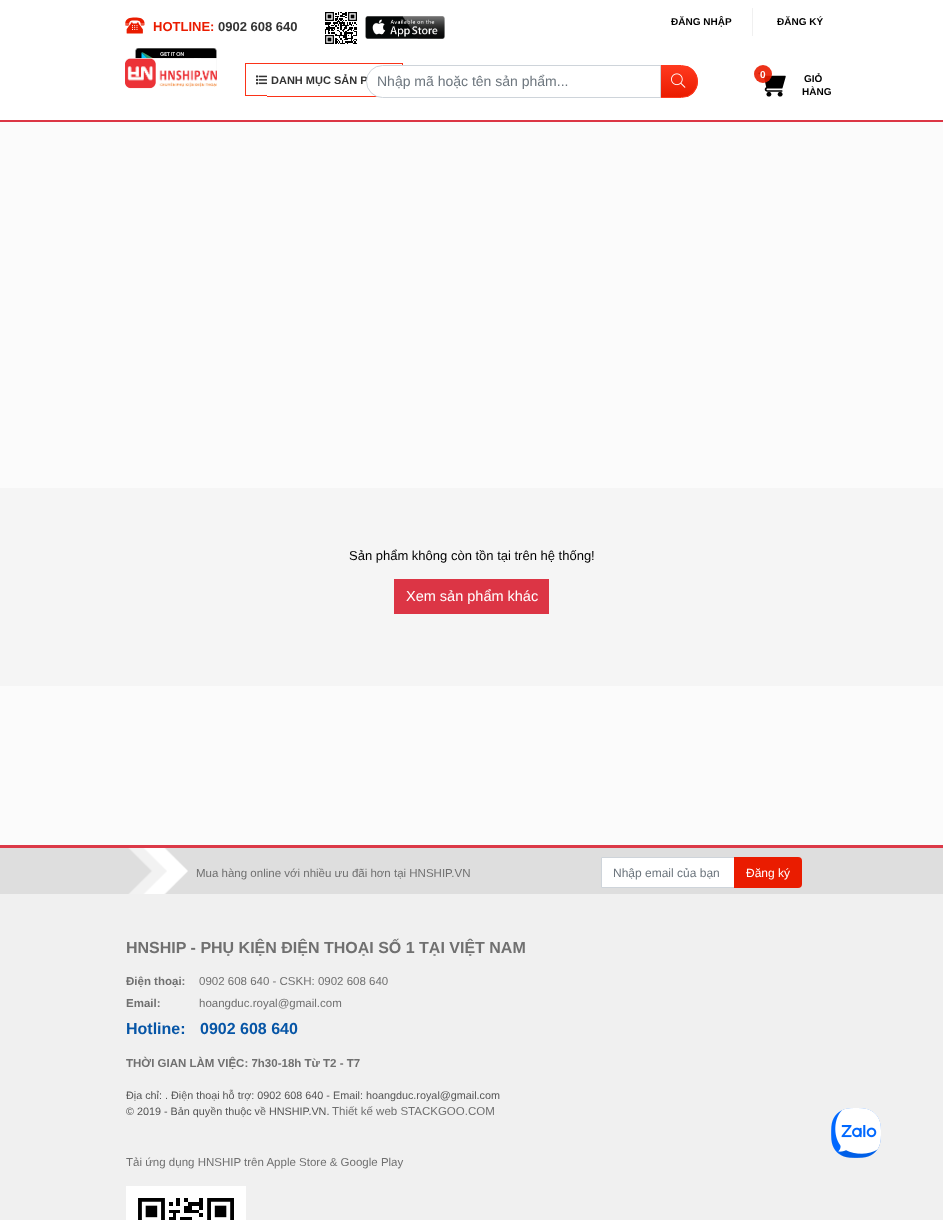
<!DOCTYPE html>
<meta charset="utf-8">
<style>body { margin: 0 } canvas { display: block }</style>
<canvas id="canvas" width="943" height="1220"></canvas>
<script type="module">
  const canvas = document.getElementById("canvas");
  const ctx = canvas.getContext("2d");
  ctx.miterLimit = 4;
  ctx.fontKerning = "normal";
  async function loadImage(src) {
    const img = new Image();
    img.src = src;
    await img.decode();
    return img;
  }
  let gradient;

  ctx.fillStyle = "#fbfbfb";
  ctx.fillRect(0, 0, 943, 1220);
  ctx.fillStyle = "#ffffff";
  ctx.fillRect(0, 0, 943, 120);
  ctx.fillStyle = "#dc3645";
  ctx.fillRect(0, 120, 943, 2);
  ctx.drawImage(await loadImage("img1.png"), 125, 17, 20, 17);
  ctx.font = "bold 13px Liberation Sans";
  ctx.fillStyle = "#ea1c00";
  ctx.fillText("HOTLINE:", 153, 31);
  ctx.fillStyle = "#333333";
  ctx.fillText("0902 608 640", 218, 31);
  ctx.drawImage(await loadImage("img2.png"), 325, 12, 32, 32);
  ctx.drawImage(await loadImage("img3.png"), 365, 16, 80, 23);
  ctx.drawImage(await loadImage("img4.png"), 135, 48, 82, 23);
  ctx.fillStyle = "#f0f0f0";
  ctx.fillRect(752, 8, 1, 28);
  ctx.font = "bold 10px Liberation Sans";
  ctx.fillStyle = "#000000";
  ctx.fillText("ĐĂNG NHẬP", 671, 25);
  ctx.fillText("ĐĂNG KÝ", 777, 25);
  ctx.drawImage(await loadImage("img5.png"), 125, 58, 92, 31);
  ctx.fillStyle = "#fb3318";
  ctx.fillRect(245, 63, 158, 1);
  ctx.fillRect(245, 95, 22, 1);
  ctx.fillRect(245, 63, 1, 33);
  ctx.fillRect(402, 63, 1, 2);
  ctx.fillRect(267, 96, 115, 1);
  ctx.drawImage(await loadImage("img6.png"), 256, 75, 11, 10);
  ctx.font = "bold 11px Liberation Sans";
  ctx.fillStyle = "#333333";
  ctx.fillText("DANH MỤC SẢN P", 271, 84);
  ctx.save();
  ctx.beginPath();
  ctx.roundRect(660, 65, 38, 33, [0, 16.5, 16.5, 0]);
  ctx.clip();
  gradient = ctx.createLinearGradient(679, 66, 679, 97);
  gradient.addColorStop(0, "#ff391e");
  gradient.addColorStop(1, "#ea1c00");
  ctx.fillStyle = gradient;
  ctx.fillRect(661, 66, 37, 31);
  ctx.restore();
  ctx.beginPath();
  ctx.roundRect(660.5, 65.5, 37, 32, [0, 16, 16, 0]);
  ctx.strokeStyle = "#ff391e";
  ctx.stroke();
  ctx.fillStyle = "#ffffff";
  ctx.beginPath();
  ctx.roundRect(366.5, 65.5, 294, 32, [16, 0, 0, 16]);
  ctx.fill();
  ctx.strokeStyle = "#ced4da";
  ctx.stroke();
  ctx.font = "14px Liberation Sans";
  ctx.fillStyle = "#6c757d";
  ctx.fillText("Nhập mã hoặc tên sản phẩm...", 377, 86);
  ctx.drawImage(await loadImage("img7.png"), 671, 73, 15, 15);
  ctx.drawImage(await loadImage("img8.png"), 758, 72, 28, 25);
  ctx.fillStyle = "rgba(234, 28, 0, 0.9)";
  ctx.beginPath();
  ctx.arc(763, 74, 9, 0, Math.PI * 2);
  ctx.fill();
  ctx.font = "bold 10px Liberation Sans";
  ctx.fillStyle = "#ffffff";
  ctx.fillText("0", 760, 78);
  ctx.fillStyle = "#000000";
  ctx.fillText("GIỎ", 804, 82);
  ctx.fillText("HÀNG", 802, 95);
  ctx.fillStyle = "#f5f5f5";
  ctx.fillRect(0, 488, 943, 198);
  ctx.font = "13px Liberation Sans";
  ctx.fillStyle = "#000000";
  ctx.fillText("Sản phẩm không còn tồn tại trên hệ thống!", 349, 560);
  ctx.fillStyle = "#dc3545";
  ctx.fillRect(394, 579, 155, 35);
  ctx.font = "14.5px Liberation Sans";
  ctx.fillStyle = "#ffffff";
  ctx.fillText("Xem sản phẩm khác", 406, 601);
  ctx.fillStyle = "#dedede";
  ctx.fillRect(0, 848, 943, 46);
  ctx.fillStyle = "#dc3948";
  ctx.fillRect(0, 845, 943, 3);
  ctx.drawImage(await loadImage("img9.png"), 128, 848, 60, 46);
  ctx.font = "11.5px Liberation Sans";
  ctx.fillStyle = "#707070";
  ctx.fillText("Mua hàng online với nhiều ưu đãi hơn tại HNSHIP.VN", 196, 877);
  ctx.fillStyle = "#ffffff";
  ctx.beginPath();
  ctx.rect(601.5, 857.5, 133, 30);
  ctx.fill();
  ctx.stroke();
  ctx.font = "12px Liberation Sans";
  ctx.fillStyle = "#6c757d";
  ctx.fillText("Nhập email của bạn", 613, 877);
  ctx.fillStyle = "#ea1c00";
  ctx.beginPath();
  ctx.roundRect(734, 857, 68, 31, [0, 4, 4, 0]);
  ctx.fill();
  ctx.fillStyle = "#ffffff";
  ctx.fillText("Đăng ký", 746, 877);
  ctx.fillStyle = "#f0f0f0";
  ctx.fillRect(0, 894, 943, 326);
  ctx.font = "bold 16px Liberation Sans";
  ctx.fillStyle = "#707070";
  ctx.fillText("HNSHIP - PHỤ KIỆN ĐIỆN THOẠI SỐ 1 TẠI VIỆT NAM", 126, 953);
  ctx.font = "bold 11.5px Liberation Sans";
  ctx.fillText("Điện thoại:", 126, 985);
  ctx.font = "11.5px Liberation Sans";
  ctx.fillText("0902 608 640 - CSKH: 0902 608 640", 199, 985);
  ctx.font = "bold 11.5px Liberation Sans";
  ctx.fillText("Email:", 126, 1007);
  ctx.font = "11.5px Liberation Sans";
  ctx.fillText("hoangduc.royal@gmail.com", 199, 1007);
  ctx.font = "bold 16px Liberation Sans";
  ctx.fillStyle = "#0655a6";
  ctx.fillText("Hotline:", 126, 1034);
  ctx.fillText("0902 608 640", 200, 1034);
  ctx.font = "bold 11.5px Liberation Sans";
  ctx.fillStyle = "#707070";
  ctx.fillText("THỜI GIAN LÀM VIỆC: 7h30-18h Từ T2 - T7", 126, 1067);
  ctx.font = "10.8px Liberation Sans";
  ctx.fillStyle = "#545454";
  ctx.fillText("Địa chỉ: . Điện thoại hỗ trợ: 0902 608 640 - Email: hoangduc.royal@gmail.com", 126, 1099);
  ctx.fillText("© 2019 - Bản quyền thuộc về HNSHIP.VN.", 126, 1115);
  ctx.font = "11.5px Liberation Sans";
  ctx.fillStyle = "#707070";
  ctx.fillText("Thiết kế web STACKGOO.COM", 332, 1115);
  ctx.fillText("Tải ứng dụng HNSHIP trên Apple Store & Google Play", 126, 1166);
  ctx.drawImage(await loadImage("img10.png"), 126, 1186, 120, 34);
  ctx.drawImage(await loadImage("img11.png"), 831, 1108, 50, 50);
</script>
